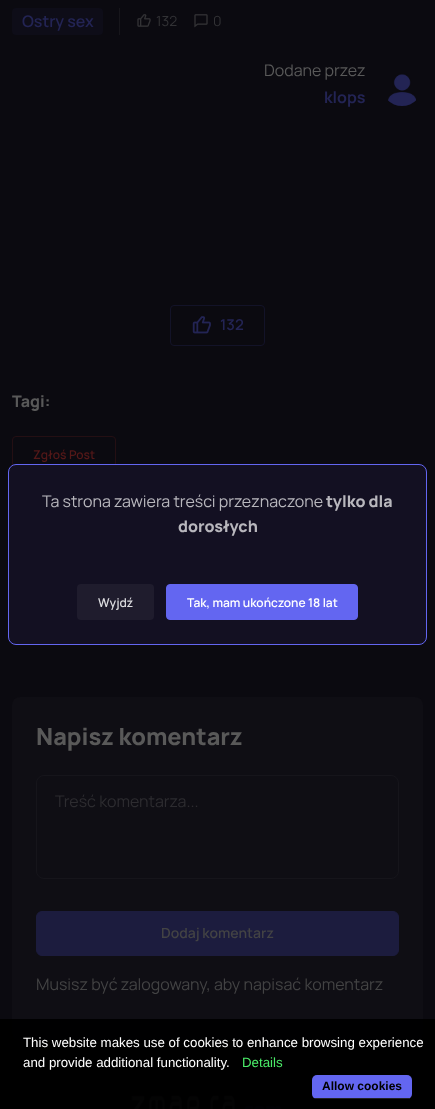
<!DOCTYPE html>
<meta charset="utf-8">
<style>body { margin: 0 } canvas { display: block }</style>
<canvas id="canvas" width="435" height="1109"></canvas>
<script type="module">
  const canvas = document.getElementById("canvas");
  const ctx = canvas.getContext("2d");
  ctx.miterLimit = 4;
  ctx.fontKerning = "normal";
  async function loadImage(src) {
    const img = new Image();
    img.src = src;
    await img.decode();
    return img;
  }

  ctx.fillStyle = "#0b0a10";
  ctx.fillRect(0, 0, 435, 1109);
  ctx.fillStyle = "#17161b";
  ctx.fillRect(119, 8, 1, 27);
  ctx.fillStyle = "#0e0d18";
  ctx.beginPath();
  ctx.roundRect(12, 8, 91, 27, 4);
  ctx.fill();
  ctx.font = "600 16px Manrope";
  ctx.fillStyle = "#232454";
  ctx.fillText("Ostry sex", 22, 27);
  ctx.drawImage(await loadImage("img1.png"), 137, 14, 14, 13);
  ctx.font = "14px Manrope";
  ctx.fillStyle = "#323235";
  ctx.fillText("132", 156, 26);
  ctx.drawImage(await loadImage("img2.png"), 194, 14, 14, 14);
  ctx.fillText("0", 213, 26);
  ctx.font = "16px Manrope";
  ctx.fillStyle = "#595959";
  ctx.fillText("Dodane przez", 264, 76);
  ctx.font = "bold 16px Manrope";
  ctx.fillStyle = "#232454";
  ctx.fillText("klops", 324, 103);
  ctx.drawImage(await loadImage("img3.png"), 388, 73, 28, 33);
  ctx.beginPath();
  ctx.roundRect(170.5, 305.5, 94, 40, 3.5);
  ctx.strokeStyle = "#131328";
  ctx.stroke();
  ctx.drawImage(await loadImage("img4.png"), 192, 316, 19, 18);
  ctx.font = "600 15px Manrope";
  ctx.fillText("132", 220, 330);
  ctx.font = "800 16px Manrope";
  ctx.fillStyle = "#595959";
  ctx.fillText("Tagi:", 12, 407);
  ctx.beginPath();
  ctx.roundRect(12.5, 436.5, 103, 36, 3.5);
  ctx.strokeStyle = "#240f13";
  ctx.stroke();
  ctx.font = "600 12px Manrope";
  ctx.fillStyle = "#541818";
  ctx.fillText("Zgłoś Post", 33, 459);
  ctx.fillStyle = "#0f0e14";
  ctx.beginPath();
  ctx.roundRect(12, 697, 411, 344, 8);
  ctx.fill();
  ctx.font = "800 23.5px Manrope";
  ctx.fillStyle = "#595959";
  ctx.fillText("Napisz komentarz", 36, 745);
  ctx.beginPath();
  ctx.roundRect(36.5, 775.5, 362, 103, 7.5);
  ctx.strokeStyle = "#16151b";
  ctx.stroke();
  ctx.font = "16px Manrope";
  ctx.fillStyle = "#2d2c30";
  ctx.fillText("Treść komentarza...", 55, 807);
  ctx.fillStyle = "#1c1c3e";
  ctx.beginPath();
  ctx.roundRect(36.5, 911.5, 362, 44, 5.5);
  ctx.fill();
  ctx.strokeStyle = "#1c1c3e";
  ctx.stroke();
  ctx.font = "600 14px Manrope";
  ctx.fillStyle = "#434344";
  ctx.fillText("Dodaj komentarz", 161, 938);
  ctx.font = "16px Manrope";
  ctx.fillText("Musisz być zalogowany, aby napisać komentarz", 36, 990);
  ctx.drawImage(await loadImage("img5.png"), 131, 1095, 151, 14);
  ctx.fillStyle = "#131022";
  ctx.beginPath();
  ctx.roundRect(8.5, 464.5, 418, 180, 7.5);
  ctx.fill();
  ctx.strokeStyle = "#6366f1";
  ctx.stroke();
  ctx.fillStyle = "#b8b7bd";
  ctx.fillText("Ta strona zawiera treści przeznaczone", 42, 507);
  ctx.font = "800 16px Manrope";
  ctx.fillText("tylko dla", 326, 507);
  ctx.fillText("dorosłych", 178, 532);
  ctx.fillStyle = "#1f1c2d";
  ctx.beginPath();
  ctx.roundRect(77, 584, 77, 36, 4);
  ctx.fill();
  ctx.font = "600 12px Manrope";
  ctx.fillStyle = "#dddde0";
  ctx.fillText("Wyjdź", 98, 607);
  ctx.fillStyle = "#6366f1";
  ctx.beginPath();
  ctx.roundRect(166.5, 584.5, 191, 35, 3.5);
  ctx.fill();
  ctx.stroke();
  ctx.fillStyle = "#ffffff";
  ctx.fillText("Tak, mam ukończone 18 lat", 187, 607);
  ctx.fillStyle = "rgba(0, 0, 0, 0.95)";
  ctx.fillRect(0, 1019, 435, 90);
  ctx.font = "13.3px Liberation Sans";
  ctx.fillStyle = "#ffffff";
  ctx.fillText("This website makes use of cookies to enhance browsing experience", 23, 1047);
  ctx.fillText("and provide additional functionality.", 23, 1067);
  ctx.fillStyle = "#4bec69";
  ctx.fillText("Details", 242, 1067);
  ctx.fillStyle = "#6366f1";
  ctx.beginPath();
  ctx.roundRect(312, 1075, 100, 24, 5);
  ctx.fill();
  ctx.fillStyle = "#222222";
  ctx.fillRect(315, 1098, 95, 1);
  ctx.font = "bold 12px Liberation Sans";
  ctx.fillStyle = "#000000";
  ctx.fillText("Allow cookies", 322, 1090);
</script>
